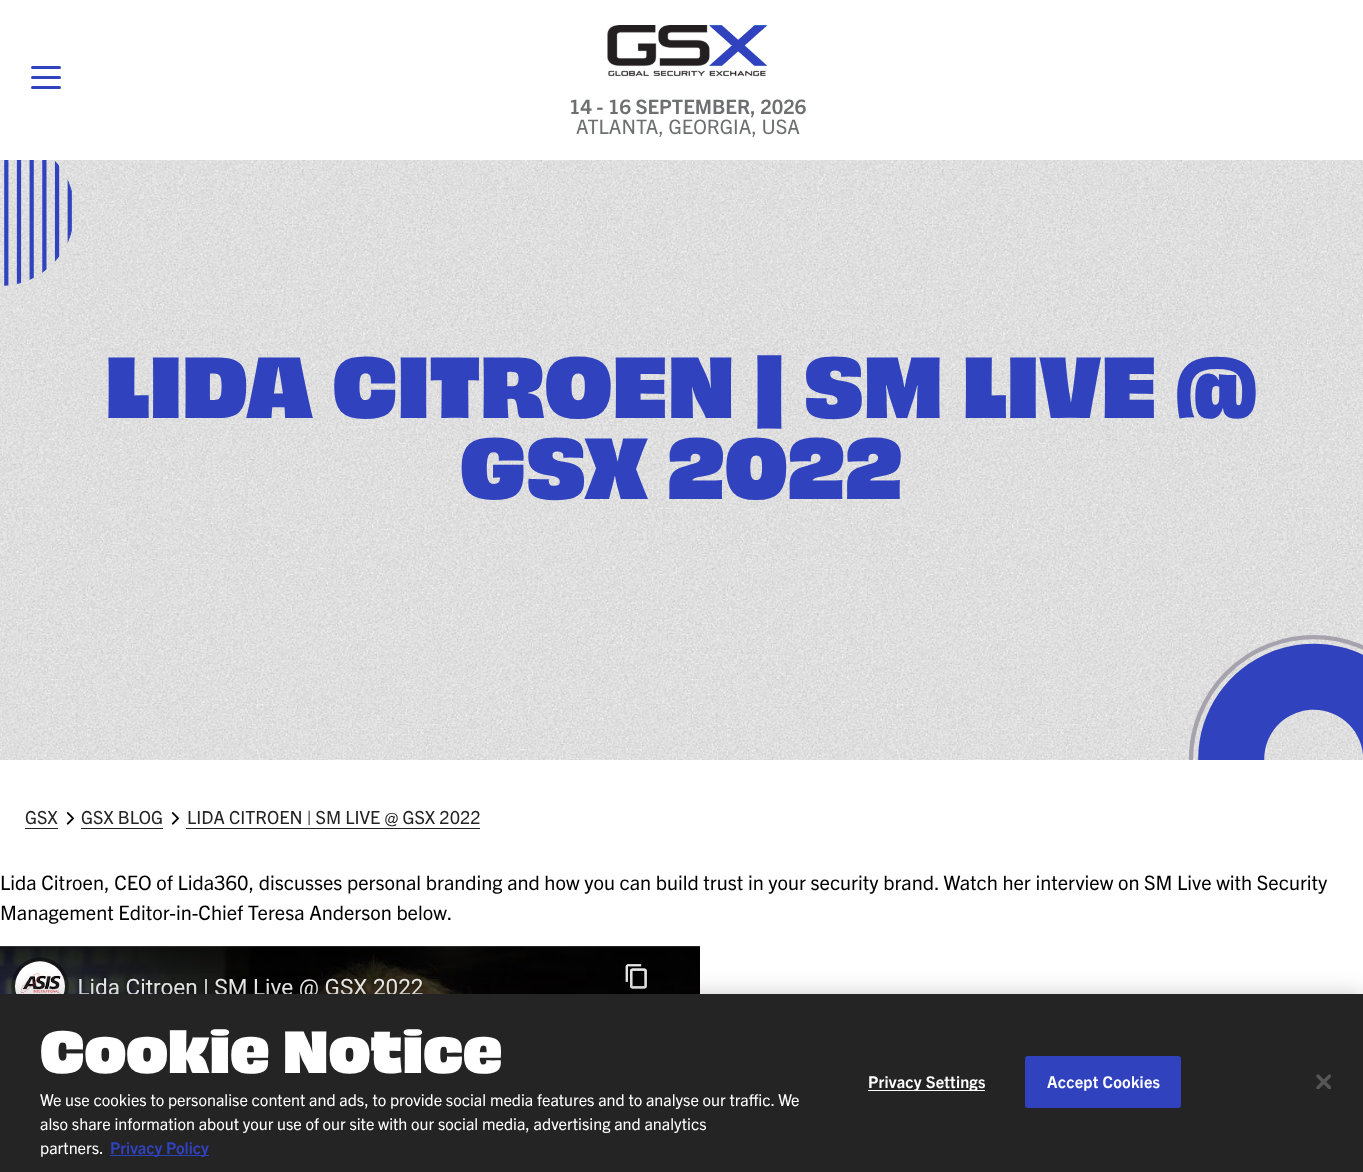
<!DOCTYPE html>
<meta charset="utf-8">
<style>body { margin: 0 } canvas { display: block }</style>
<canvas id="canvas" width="1363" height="1172"></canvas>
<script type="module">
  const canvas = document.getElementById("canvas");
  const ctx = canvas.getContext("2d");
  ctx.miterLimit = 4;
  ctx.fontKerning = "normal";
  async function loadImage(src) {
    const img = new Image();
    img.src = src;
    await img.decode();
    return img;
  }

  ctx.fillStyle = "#ffffff";
  ctx.fillRect(0, 0, 1363, 1172);
  ctx.fillStyle = "#3142be";
  ctx.beginPath();
  ctx.roundRect(31, 76, 30, 3, 1.5);
  ctx.fill();
  ctx.beginPath();
  ctx.roundRect(31, 66, 30, 3, 1.5);
  ctx.fill();
  ctx.beginPath();
  ctx.roundRect(31, 86, 30, 3, 1.5);
  ctx.fill();
  ctx.drawImage(await loadImage("img1.png"), 607, 25, 161, 52);
  ctx.font = "bold 20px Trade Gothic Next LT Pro";
  ctx.fillStyle = "#6e6f70";
  ctx.fillText("14 - 16 SEPTEMBER, 2026", 569, 114);
  ctx.font = "20px Trade Gothic Next LT Pro";
  ctx.fillText("ATLANTA, GEORGIA, USA", 576, 134);
  ctx.drawImage(await loadImage("img2.png"), 0, 160, 1363, 600);
  ctx.drawImage(await loadImage("img3.png"), 4, 160, 68, 126);
  ctx.font = "600 80.6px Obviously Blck";
  ctx.fillStyle = "#3142be";
  ctx.fillText("LIDA CITROEN | SM LIVE @", 105, 418);
  ctx.fillText("GSX 2022", 460, 499);
  ctx.drawImage(await loadImage("img4.png"), 1189, 635, 174, 125);
  ctx.font = "18px Trade Gothic Next LT Pro";
  ctx.fillStyle = "#242424";
  ctx.fillText("GSX", 25, 824);
  ctx.fillRect(25, 828, 33, 1);
  ctx.drawImage(await loadImage("img5.png"), 66, 812, 8, 13);
  ctx.fillText("GSX BLOG", 81, 824);
  ctx.fillRect(81, 828, 82, 1);
  ctx.drawImage(await loadImage("img5.png"), 171, 812, 8, 13);
  ctx.fillText("LIDA CITROEN | SM LIVE @ GSX 2022", 187, 824);
  ctx.fillRect(186, 828, 294, 1);
  ctx.font = "20px Trade Gothic Next LT Pro";
  ctx.fillStyle = "#000000";
  ctx.fillText("Lida Citroen, CEO of Lida360, discusses personal branding and how you can build trust in your security brand. Watch her interview on SM Live with Security", 0, 890);
  ctx.fillText("Management Editor-in-Chief Teresa Anderson below.", 0, 920);
  ctx.drawImage(await loadImage("img6.png"), 0, 946, 700, 48);
  ctx.fillStyle = "rgba(0, 0, 0, 0.2)";
  ctx.filter = "blur(11px)";
  ctx.beginPath();
  ctx.rect(0, 994, 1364, 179);
  ctx.fill();
  ctx.filter = "none";
  ctx.fillStyle = "#242424";
  ctx.fillRect(0, 994, 1363, 178);
  ctx.font = "600 55.25px Obviously Blck";
  ctx.fillStyle = "#ffffff";
  ctx.fillText("Cookie Notice", 40, 1073);
  ctx.font = "16.25px Trade Gothic Next LT Pro";
  ctx.fillText("We use cookies to personalise content and ads, to provide social media features and to analyse our traffic. We", 40, 1106);
  ctx.fillText("also share information about your use of our site with our social media, advertising and analytics", 40, 1130);
  ctx.fillText("partners.", 40, 1154);
  ctx.fillStyle = "#3142be";
  ctx.fillRect(110, 1155, 99, 1);
  ctx.font = "bold 16.25px Trade Gothic Next LT Pro";
  ctx.fillText("Privacy Policy", 110, 1154);
  ctx.fillStyle = "#ffffff";
  ctx.fillRect(868, 1090, 117, 1);
  ctx.letterSpacing = "0.2px";
  ctx.fillText("Privacy Settings", 868, 1088);
  ctx.fillStyle = "#3142be";
  ctx.beginPath();
  ctx.roundRect(1025.5, 1056.5, 155, 51, 2);
  ctx.fill();
  ctx.strokeStyle = "#3142be";
  ctx.stroke();
  ctx.fillStyle = "#ffffff";
  ctx.fillText("Accept Cookies", 1047, 1088);
  ctx.drawImage(await loadImage("img7.png"), 1316, 1074, 15, 15);
</script>
